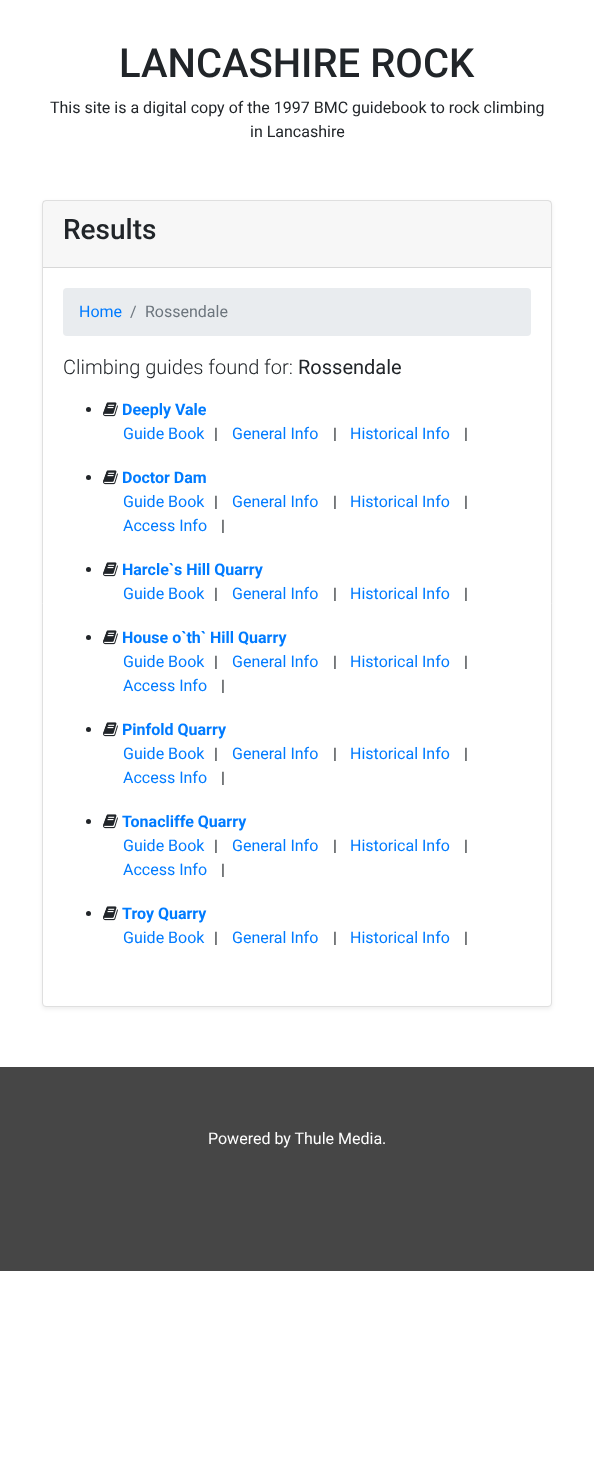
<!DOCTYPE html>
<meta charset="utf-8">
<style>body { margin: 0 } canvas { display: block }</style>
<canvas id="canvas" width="594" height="1457"></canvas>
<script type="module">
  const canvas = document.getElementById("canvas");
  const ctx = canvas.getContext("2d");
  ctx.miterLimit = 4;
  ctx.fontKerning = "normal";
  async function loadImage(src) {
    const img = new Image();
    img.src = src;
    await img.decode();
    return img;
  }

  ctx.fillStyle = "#ffffff";
  ctx.fillRect(0, 0, 594, 1457);
  ctx.font = "500 40px Roboto";
  ctx.fillStyle = "#212529";
  ctx.fillText("LANCASHIRE ROCK", 119, 77);
  ctx.font = "16px Roboto";
  ctx.fillText("This site is a digital copy of the 1997 BMC guidebook to rock climbing", 50, 113);
  ctx.fillText("in Lancashire", 250, 137);
  ctx.fillStyle = "rgba(0, 0, 0, 0.07)";
  ctx.filter = "blur(2px)";
  ctx.beginPath();
  ctx.roundRect(42, 202, 510, 807, 4);
  ctx.fill();
  ctx.filter = "none";
  ctx.fillStyle = "#ffffff";
  ctx.beginPath();
  ctx.roundRect(42.5, 200.5, 509, 806, 3.5);
  ctx.fill();
  ctx.strokeStyle = "#dfdfdf";
  ctx.stroke();
  ctx.fillStyle = "rgba(0, 0, 0, 0.03)";
  ctx.fillRect(43, 201, 508, 66);
  ctx.fillStyle = "#d8d8d8";
  ctx.fillRect(43, 267, 508, 1);
  ctx.font = "500 28px Roboto";
  ctx.fillStyle = "#212529";
  ctx.fillText("Results", 63, 239);
  ctx.fillStyle = "#e9ecef";
  ctx.beginPath();
  ctx.roundRect(63, 288, 468, 48, 4);
  ctx.fill();
  ctx.font = "16px Roboto";
  ctx.fillStyle = "#007bff";
  ctx.fillText("Home", 79, 317);
  ctx.fillStyle = "#6c757d";
  ctx.fillText("/", 130, 317);
  ctx.fillText("Rossendale", 145, 317);
  ctx.font = "300 20px Roboto";
  ctx.fillStyle = "#212529";
  ctx.fillText("Climbing guides found for:", 63, 374);
  ctx.font = "20px Roboto";
  ctx.fillText("Rossendale", 298, 374);
  ctx.beginPath();
  ctx.arc(88.5, 409.5, 2.5, 0, Math.PI * 2);
  ctx.fill();
  ctx.drawImage(await loadImage("img1.png"), 103, 402, 15, 15);
  ctx.font = "bold 16px Roboto";
  ctx.fillStyle = "#007bff";
  ctx.fillText("Deeply Vale", 122, 415);
  ctx.font = "16px Roboto";
  ctx.fillText("Guide Book", 123, 439);
  ctx.fillStyle = "#212529";
  ctx.fillText("|", 214, 439);
  ctx.fillStyle = "#007bff";
  ctx.fillText("General Info", 232, 439);
  ctx.fillStyle = "#212529";
  ctx.fillText("|", 333, 439);
  ctx.fillStyle = "#007bff";
  ctx.fillText("Historical Info", 350, 439);
  ctx.fillStyle = "#212529";
  ctx.fillText("|", 464, 439);
  ctx.beginPath();
  ctx.arc(88.5, 477.5, 2.5, 0, Math.PI * 2);
  ctx.fill();
  ctx.drawImage(await loadImage("img1.png"), 103, 470, 15, 15);
  ctx.font = "bold 16px Roboto";
  ctx.fillStyle = "#007bff";
  ctx.fillText("Doctor Dam", 122, 483);
  ctx.font = "16px Roboto";
  ctx.fillText("Guide Book", 123, 507);
  ctx.fillStyle = "#212529";
  ctx.fillText("|", 214, 507);
  ctx.fillStyle = "#007bff";
  ctx.fillText("General Info", 232, 507);
  ctx.fillStyle = "#212529";
  ctx.fillText("|", 333, 507);
  ctx.fillStyle = "#007bff";
  ctx.fillText("Historical Info", 350, 507);
  ctx.fillStyle = "#212529";
  ctx.fillText("|", 464, 507);
  ctx.fillStyle = "#007bff";
  ctx.fillText("Access Info", 123, 531);
  ctx.fillStyle = "#212529";
  ctx.fillText("|", 221, 531);
  ctx.beginPath();
  ctx.arc(88.5, 569.5, 2.5, 0, Math.PI * 2);
  ctx.fill();
  ctx.drawImage(await loadImage("img1.png"), 103, 562, 15, 15);
  ctx.font = "bold 16px Roboto";
  ctx.fillStyle = "#007bff";
  ctx.fillText("Harcle`s Hill Quarry", 122, 575);
  ctx.font = "16px Roboto";
  ctx.fillText("Guide Book", 123, 599);
  ctx.fillStyle = "#212529";
  ctx.fillText("|", 214, 599);
  ctx.fillStyle = "#007bff";
  ctx.fillText("General Info", 232, 599);
  ctx.fillStyle = "#212529";
  ctx.fillText("|", 333, 599);
  ctx.fillStyle = "#007bff";
  ctx.fillText("Historical Info", 350, 599);
  ctx.fillStyle = "#212529";
  ctx.fillText("|", 464, 599);
  ctx.beginPath();
  ctx.arc(88.5, 637.5, 2.5, 0, Math.PI * 2);
  ctx.fill();
  ctx.drawImage(await loadImage("img1.png"), 103, 630, 15, 15);
  ctx.font = "bold 16px Roboto";
  ctx.fillStyle = "#007bff";
  ctx.fillText("House o`th` Hill Quarry", 122, 643);
  ctx.font = "16px Roboto";
  ctx.fillText("Guide Book", 123, 667);
  ctx.fillStyle = "#212529";
  ctx.fillText("|", 214, 667);
  ctx.fillStyle = "#007bff";
  ctx.fillText("General Info", 232, 667);
  ctx.fillStyle = "#212529";
  ctx.fillText("|", 333, 667);
  ctx.fillStyle = "#007bff";
  ctx.fillText("Historical Info", 350, 667);
  ctx.fillStyle = "#212529";
  ctx.fillText("|", 464, 667);
  ctx.fillStyle = "#007bff";
  ctx.fillText("Access Info", 123, 691);
  ctx.fillStyle = "#212529";
  ctx.fillText("|", 221, 691);
  ctx.beginPath();
  ctx.arc(88.5, 729.5, 2.5, 0, Math.PI * 2);
  ctx.fill();
  ctx.drawImage(await loadImage("img1.png"), 103, 722, 15, 15);
  ctx.font = "bold 16px Roboto";
  ctx.fillStyle = "#007bff";
  ctx.fillText("Pinfold Quarry", 122, 735);
  ctx.font = "16px Roboto";
  ctx.fillText("Guide Book", 123, 759);
  ctx.fillStyle = "#212529";
  ctx.fillText("|", 214, 759);
  ctx.fillStyle = "#007bff";
  ctx.fillText("General Info", 232, 759);
  ctx.fillStyle = "#212529";
  ctx.fillText("|", 333, 759);
  ctx.fillStyle = "#007bff";
  ctx.fillText("Historical Info", 350, 759);
  ctx.fillStyle = "#212529";
  ctx.fillText("|", 464, 759);
  ctx.fillStyle = "#007bff";
  ctx.fillText("Access Info", 123, 783);
  ctx.fillStyle = "#212529";
  ctx.fillText("|", 221, 783);
  ctx.beginPath();
  ctx.arc(88.5, 821.5, 2.5, 0, Math.PI * 2);
  ctx.fill();
  ctx.drawImage(await loadImage("img1.png"), 103, 814, 15, 15);
  ctx.font = "bold 16px Roboto";
  ctx.fillStyle = "#007bff";
  ctx.fillText("Tonacliffe Quarry", 122, 827);
  ctx.font = "16px Roboto";
  ctx.fillText("Guide Book", 123, 851);
  ctx.fillStyle = "#212529";
  ctx.fillText("|", 214, 851);
  ctx.fillStyle = "#007bff";
  ctx.fillText("General Info", 232, 851);
  ctx.fillStyle = "#212529";
  ctx.fillText("|", 333, 851);
  ctx.fillStyle = "#007bff";
  ctx.fillText("Historical Info", 350, 851);
  ctx.fillStyle = "#212529";
  ctx.fillText("|", 464, 851);
  ctx.fillStyle = "#007bff";
  ctx.fillText("Access Info", 123, 875);
  ctx.fillStyle = "#212529";
  ctx.fillText("|", 221, 875);
  ctx.beginPath();
  ctx.arc(88.5, 913.5, 2.5, 0, Math.PI * 2);
  ctx.fill();
  ctx.drawImage(await loadImage("img1.png"), 103, 906, 15, 15);
  ctx.font = "bold 16px Roboto";
  ctx.fillStyle = "#007bff";
  ctx.fillText("Troy Quarry", 122, 919);
  ctx.font = "16px Roboto";
  ctx.fillText("Guide Book", 123, 943);
  ctx.fillStyle = "#212529";
  ctx.fillText("|", 214, 943);
  ctx.fillStyle = "#007bff";
  ctx.fillText("General Info", 232, 943);
  ctx.fillStyle = "#212529";
  ctx.fillText("|", 333, 943);
  ctx.fillStyle = "#007bff";
  ctx.fillText("Historical Info", 350, 943);
  ctx.fillStyle = "#212529";
  ctx.fillText("|", 464, 943);
  ctx.fillStyle = "#464646";
  ctx.fillRect(0, 1067, 594, 204);
  ctx.fillStyle = "#ffffff";
  ctx.fillText("Powered by Thule Media.", 208, 1144);
</script>
